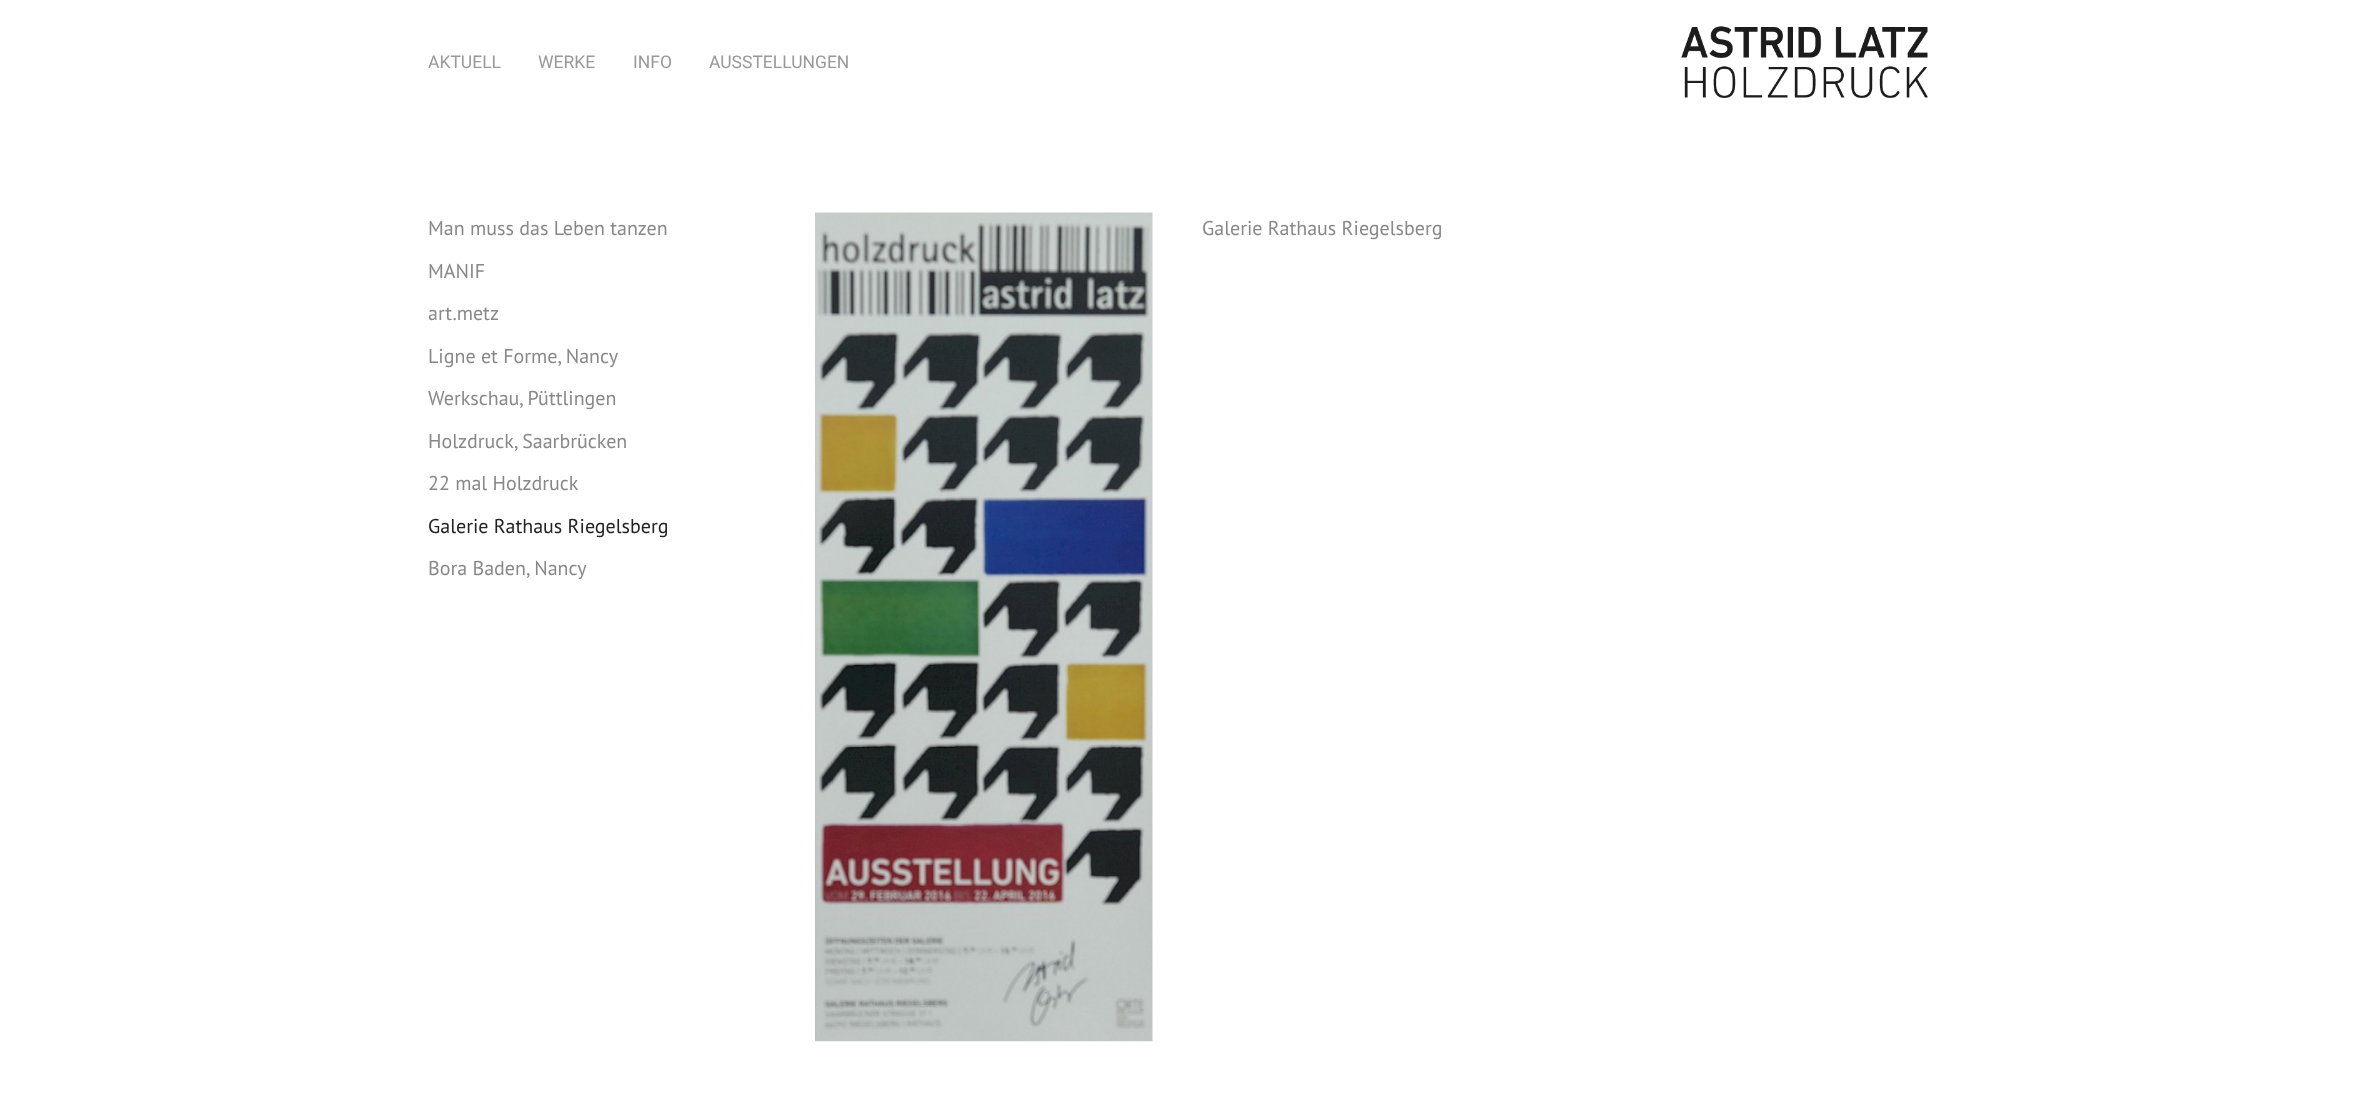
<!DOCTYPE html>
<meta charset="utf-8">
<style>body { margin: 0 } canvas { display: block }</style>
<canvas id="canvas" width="2354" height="1108"></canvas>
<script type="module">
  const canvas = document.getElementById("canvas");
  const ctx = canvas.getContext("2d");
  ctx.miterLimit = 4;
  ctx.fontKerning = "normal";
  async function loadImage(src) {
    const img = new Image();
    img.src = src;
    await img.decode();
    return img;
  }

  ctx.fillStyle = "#ffffff";
  ctx.fillRect(0, 0, 2354, 1108);
  ctx.font = "17.5px Roboto";
  ctx.fillStyle = "#999999";
  ctx.fillText("AKTUELL", 428, 68);
  ctx.fillText("WERKE", 538, 68);
  ctx.fillText("INFO", 633, 68);
  ctx.fillText("AUSSTELLUNGEN", 709, 68);
  ctx.drawImage(await loadImage("img1.png"), 1681, 26, 247, 72);
  ctx.font = "20px PT Sans";
  ctx.fillStyle = "#888888";
  ctx.fillText("Man muss das Leben tanzen", 428, 235);
  ctx.fillText("MANIF", 428, 278);
  ctx.fillText("art.metz", 428, 320);
  ctx.fillText("Ligne et Forme, Nancy", 428, 363);
  ctx.fillText("Werkschau, Püttlingen", 428, 405);
  ctx.fillText("Holzdruck, Saarbrücken", 428, 448);
  ctx.fillText("22 mal Holzdruck", 428, 490);
  ctx.fillStyle = "#222222";
  ctx.fillText("Galerie Rathaus Riegelsberg", 428, 533);
  ctx.fillStyle = "#888888";
  ctx.fillText("Bora Baden, Nancy", 428, 575);
  ctx.drawImage(await loadImage("img2.png"), 815, 212, 338, 830);
  ctx.fillText("Galerie Rathaus Riegelsberg", 1202, 235);
</script>
